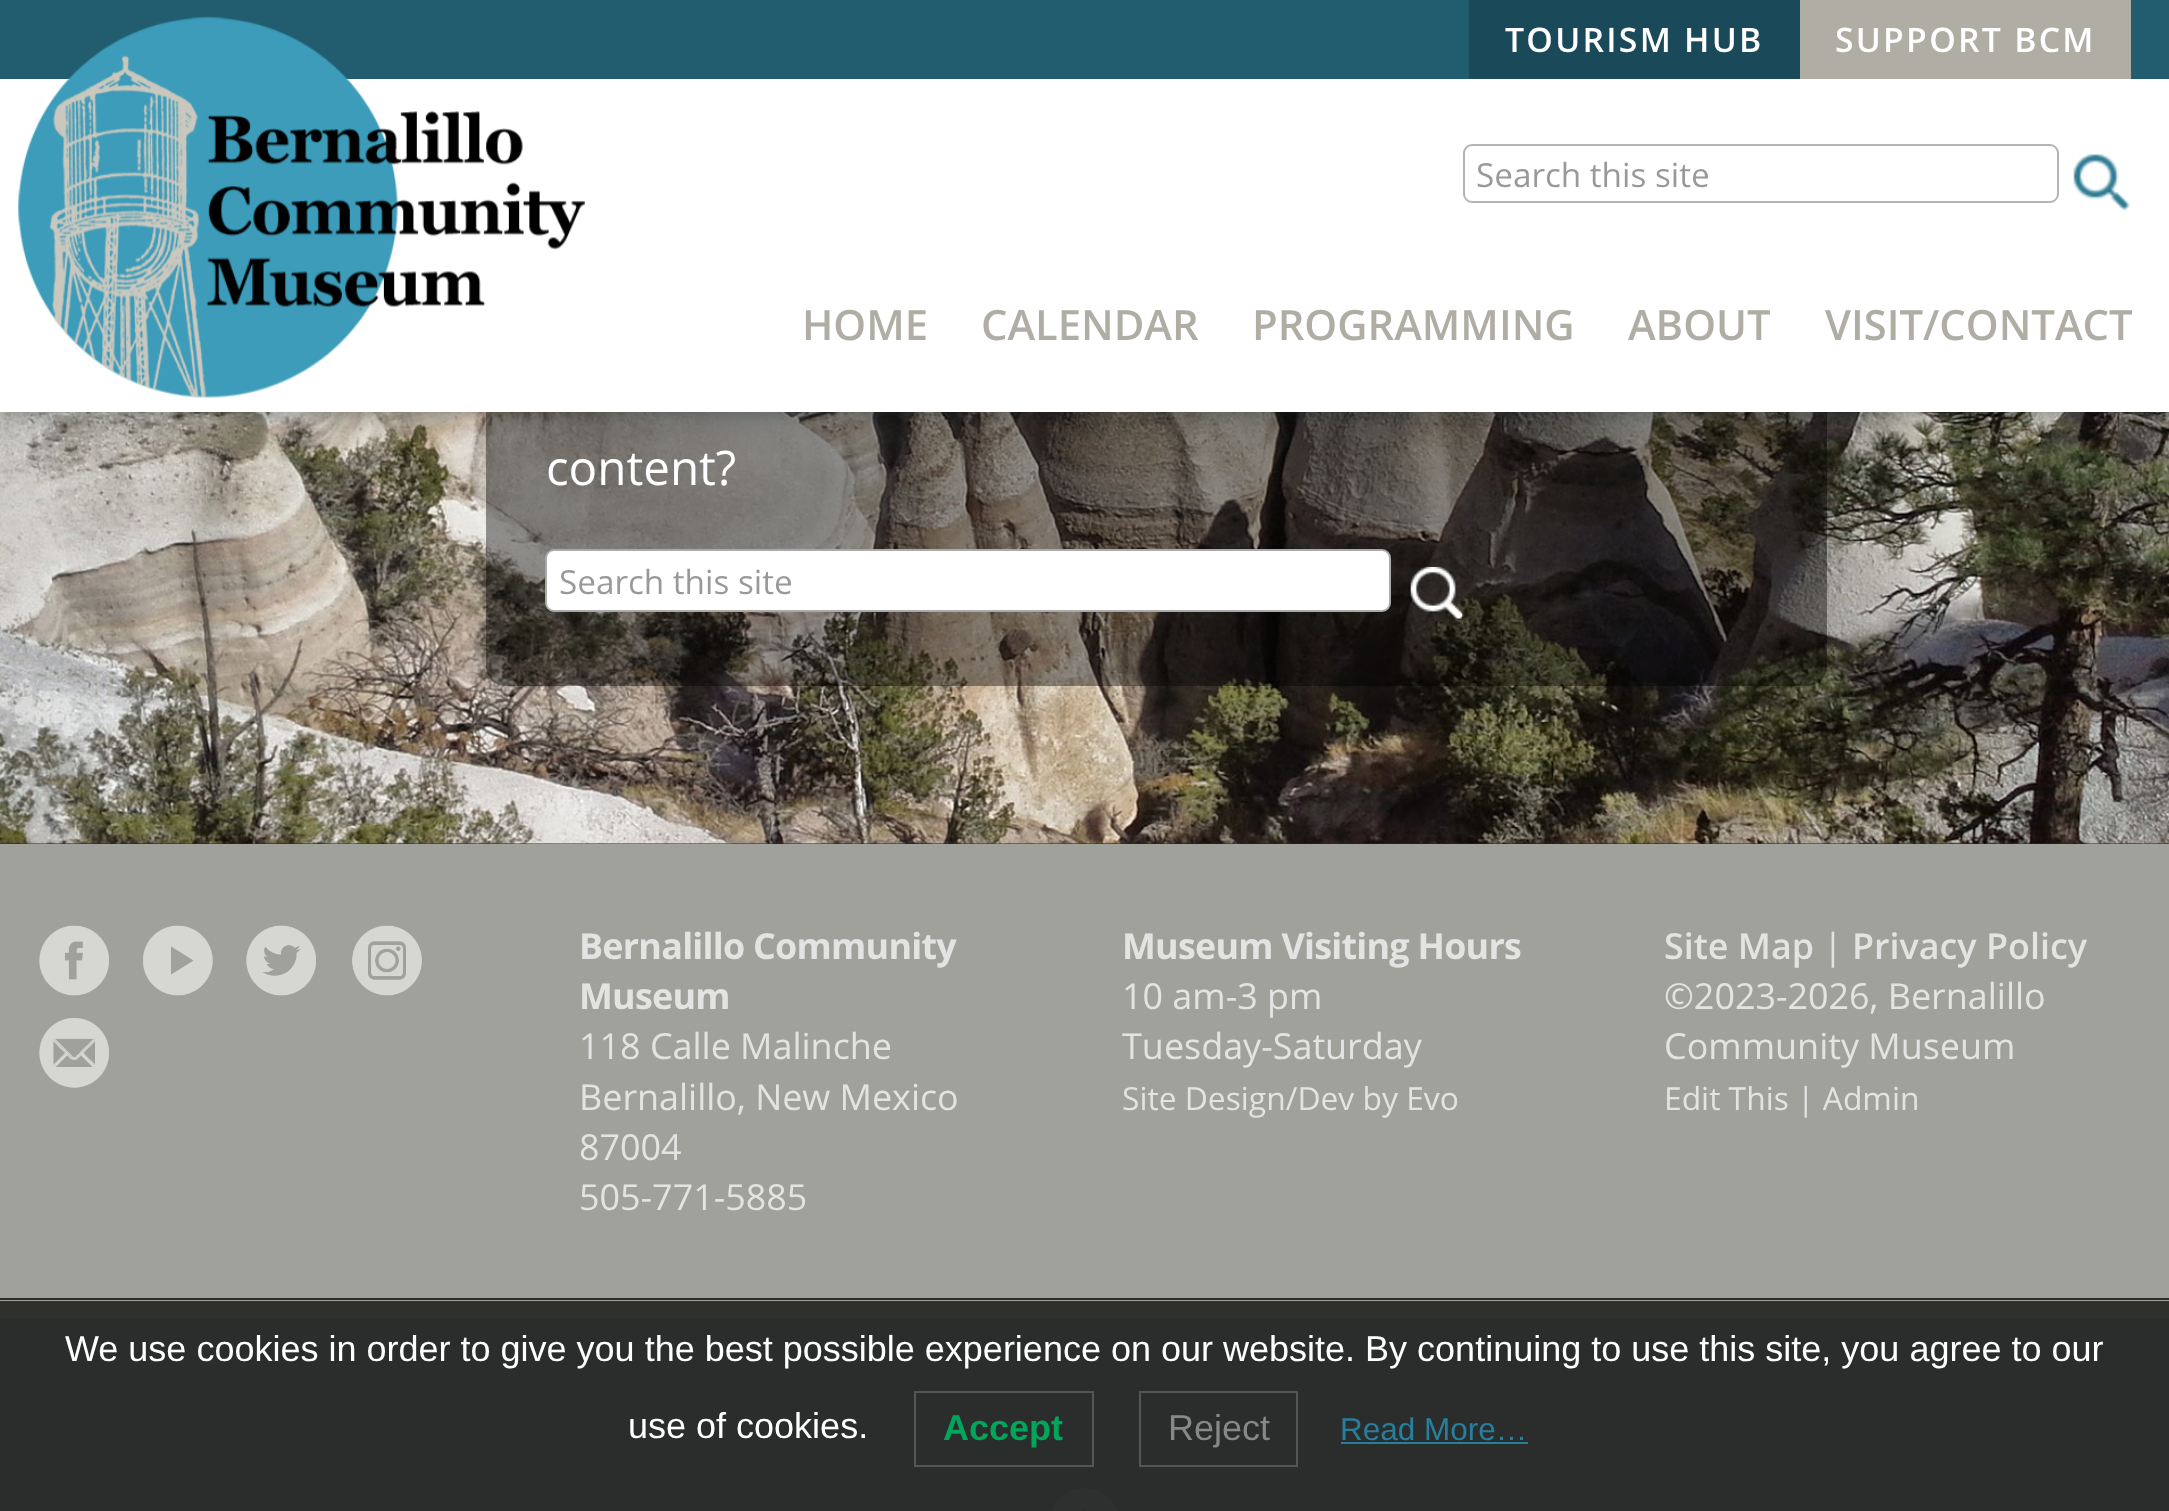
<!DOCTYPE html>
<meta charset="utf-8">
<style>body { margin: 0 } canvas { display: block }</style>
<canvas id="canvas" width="2169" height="1511"></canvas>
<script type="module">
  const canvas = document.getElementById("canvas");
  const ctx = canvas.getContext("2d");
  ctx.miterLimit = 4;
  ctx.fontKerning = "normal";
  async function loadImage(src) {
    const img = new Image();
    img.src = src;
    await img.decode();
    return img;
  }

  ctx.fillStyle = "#1a2832";
  ctx.fillRect(0, 0, 2169, 1511);
  ctx.drawImage(await loadImage("img3.png"), 0, 412, 2169, 432);
  ctx.fillStyle = "rgba(0, 0, 0, 0.4)";
  ctx.beginPath();
  ctx.roundRect(486, -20, 1341, 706, 20);
  ctx.fill();
  ctx.fillStyle = "rgba(14, 30, 37, 0.22)";
  ctx.filter = "blur(18px)";
  ctx.beginPath();
  ctx.rect(0, 5, 2169, 411);
  ctx.fill();
  ctx.filter = "none";
  ctx.fillStyle = "rgba(14, 30, 37, 0.12)";
  ctx.filter = "blur(4.5px)";
  ctx.beginPath();
  ctx.rect(0, 5, 2169, 411);
  ctx.fill();
  ctx.filter = "none";
  ctx.fillStyle = "#215d6f";
  ctx.fillRect(0, 0, 2169, 79);
  ctx.fillStyle = "#1a4a59";
  ctx.fillRect(1469, 0, 331, 79);
  ctx.letterSpacing = "2.25px";
  ctx.font = "600 33.75px Open Sans";
  ctx.fillStyle = "#ffffff";
  ctx.fillText("TOURISM HUB", 1505, 52);
  ctx.fillStyle = "#afada4";
  ctx.fillRect(1800, 0, 331, 79);
  ctx.fillStyle = "#ffffff";
  ctx.fillText("SUPPORT BCM", 1835, 52);
  ctx.fillRect(0, 79, 2169, 333);
  ctx.drawImage(await loadImage("img1.png"), 18, 16, 568, 382);
  ctx.beginPath();
  ctx.roundRect(1464, 145, 594, 57, 8);
  ctx.strokeStyle = "#b4b4b1";
  ctx.lineWidth = 2;
  ctx.stroke();
  ctx.letterSpacing = "0px";
  ctx.font = "33.25px Open Sans";
  ctx.fillStyle = "#999999";
  ctx.fillText("Search this site", 1476, 187);
  ctx.drawImage(await loadImage("img2.png"), 2073, 154, 57, 57);
  ctx.font = "600 41.75px Open Sans";
  ctx.fillStyle = "#afada4";
  ctx.fillText("HOME", 802, 340);
  ctx.fillText("CALENDAR", 981, 340);
  ctx.fillText("PROGRAMMING", 1252, 340);
  ctx.fillText("ABOUT", 1628, 340);
  ctx.fillText("VISIT/CONTACT", 1825, 340);
  ctx.font = "47.5px Open Sans";
  ctx.fillStyle = "#ffffff";
  ctx.fillText("content?", 546, 485);
  ctx.beginPath();
  ctx.roundRect(546, 550, 844, 61, 8);
  ctx.fill();
  ctx.strokeStyle = "#aaaaaa";
  ctx.stroke();
  ctx.font = "33.25px Open Sans";
  ctx.fillStyle = "#999999";
  ctx.fillText("Search this site", 559, 594);
  ctx.drawImage(await loadImage("img4.png"), 1410, 566, 53, 53);
  ctx.fillStyle = "#a1a19c";
  ctx.fillRect(0, 844, 2169, 457);
  ctx.fillStyle = "#2f2f2e";
  ctx.fillRect(0, 1301, 2169, 18);
  ctx.drawImage(await loadImage("img5.png"), 39, 925, 70, 71);
  ctx.drawImage(await loadImage("img6.png"), 143, 925, 70, 71);
  ctx.drawImage(await loadImage("img7.png"), 246, 925, 70, 71);
  ctx.drawImage(await loadImage("img8.png"), 352, 925, 70, 71);
  ctx.drawImage(await loadImage("img9.png"), 39, 1018, 70, 70);
  ctx.letterSpacing = "-0.75px";
  ctx.font = "bold 35.9px Open Sans";
  ctx.fillStyle = "#e3e3e1";
  ctx.fillText("Bernalillo Community", 579, 959);
  ctx.fillText("Museum", 579, 1009);
  ctx.letterSpacing = "0px";
  ctx.font = "35.9px Open Sans";
  ctx.fillText("118 Calle Malinche", 579, 1059);
  ctx.fillText("Bernalillo, New Mexico", 579, 1110);
  ctx.fillText("87004", 579, 1160);
  ctx.fillText("505-771-5885", 579, 1210);
  ctx.letterSpacing = "-0.75px";
  ctx.font = "bold 35.9px Open Sans";
  ctx.fillText("Museum Visiting Hours", 1122, 959);
  ctx.letterSpacing = "0px";
  ctx.font = "35.9px Open Sans";
  ctx.fillText("10 am-3 pm", 1122, 1009);
  ctx.fillText("Tuesday-Saturday", 1122, 1059);
  ctx.font = "31.75px Open Sans";
  ctx.fillText("Site Design/Dev by Evo", 1122, 1110);
  ctx.font = "600 35.9px Open Sans";
  ctx.fillText("Site Map", 1664, 959);
  ctx.font = "35.9px Open Sans";
  ctx.fillText("|", 1823, 959);
  ctx.font = "600 35.9px Open Sans";
  ctx.fillText("Privacy Policy", 1852, 959);
  ctx.font = "35.9px Open Sans";
  ctx.fillText("©2023-2026, Bernalillo", 1664, 1009);
  ctx.fillText("Community Museum", 1664, 1059);
  ctx.font = "31.75px Open Sans";
  ctx.fillText("Edit This | Admin", 1664, 1110);
  ctx.fillStyle = "#2b2d2d";
  ctx.fillRect(0, 1319, 2169, 192);
  ctx.drawImage(await loadImage("img10.png"), 1051, 1488, 67, 23);
  ctx.fillStyle = "#2b2b2b";
  ctx.fillRect(0, 1298, 2169, 2);
  ctx.font = "36px Liberation Sans";
  ctx.fillStyle = "#ffffff";
  ctx.fillText("We use cookies in order to give you the best possible experience on our website. By continuing to use this site, you agree to our", 65, 1361);
  ctx.fillText("use of cookies.", 628, 1438);
  ctx.strokeStyle = "#555555";
  ctx.strokeRect(915, 1392, 178, 74);
  ctx.font = "bold 36px Liberation Sans";
  ctx.fillStyle = "#00a65a";
  ctx.fillText("Accept", 943, 1440);
  ctx.strokeRect(1140, 1392, 157, 74);
  ctx.font = "36px Liberation Sans";
  ctx.fillStyle = "#888888";
  ctx.fillText("Reject", 1168, 1440);
  ctx.font = "31.5px Liberation Sans";
  ctx.fillStyle = "#277f9b";
  ctx.fillText("Read More…", 1340, 1440);
  ctx.fillRect(1341, 1442, 187, 2);
</script>
